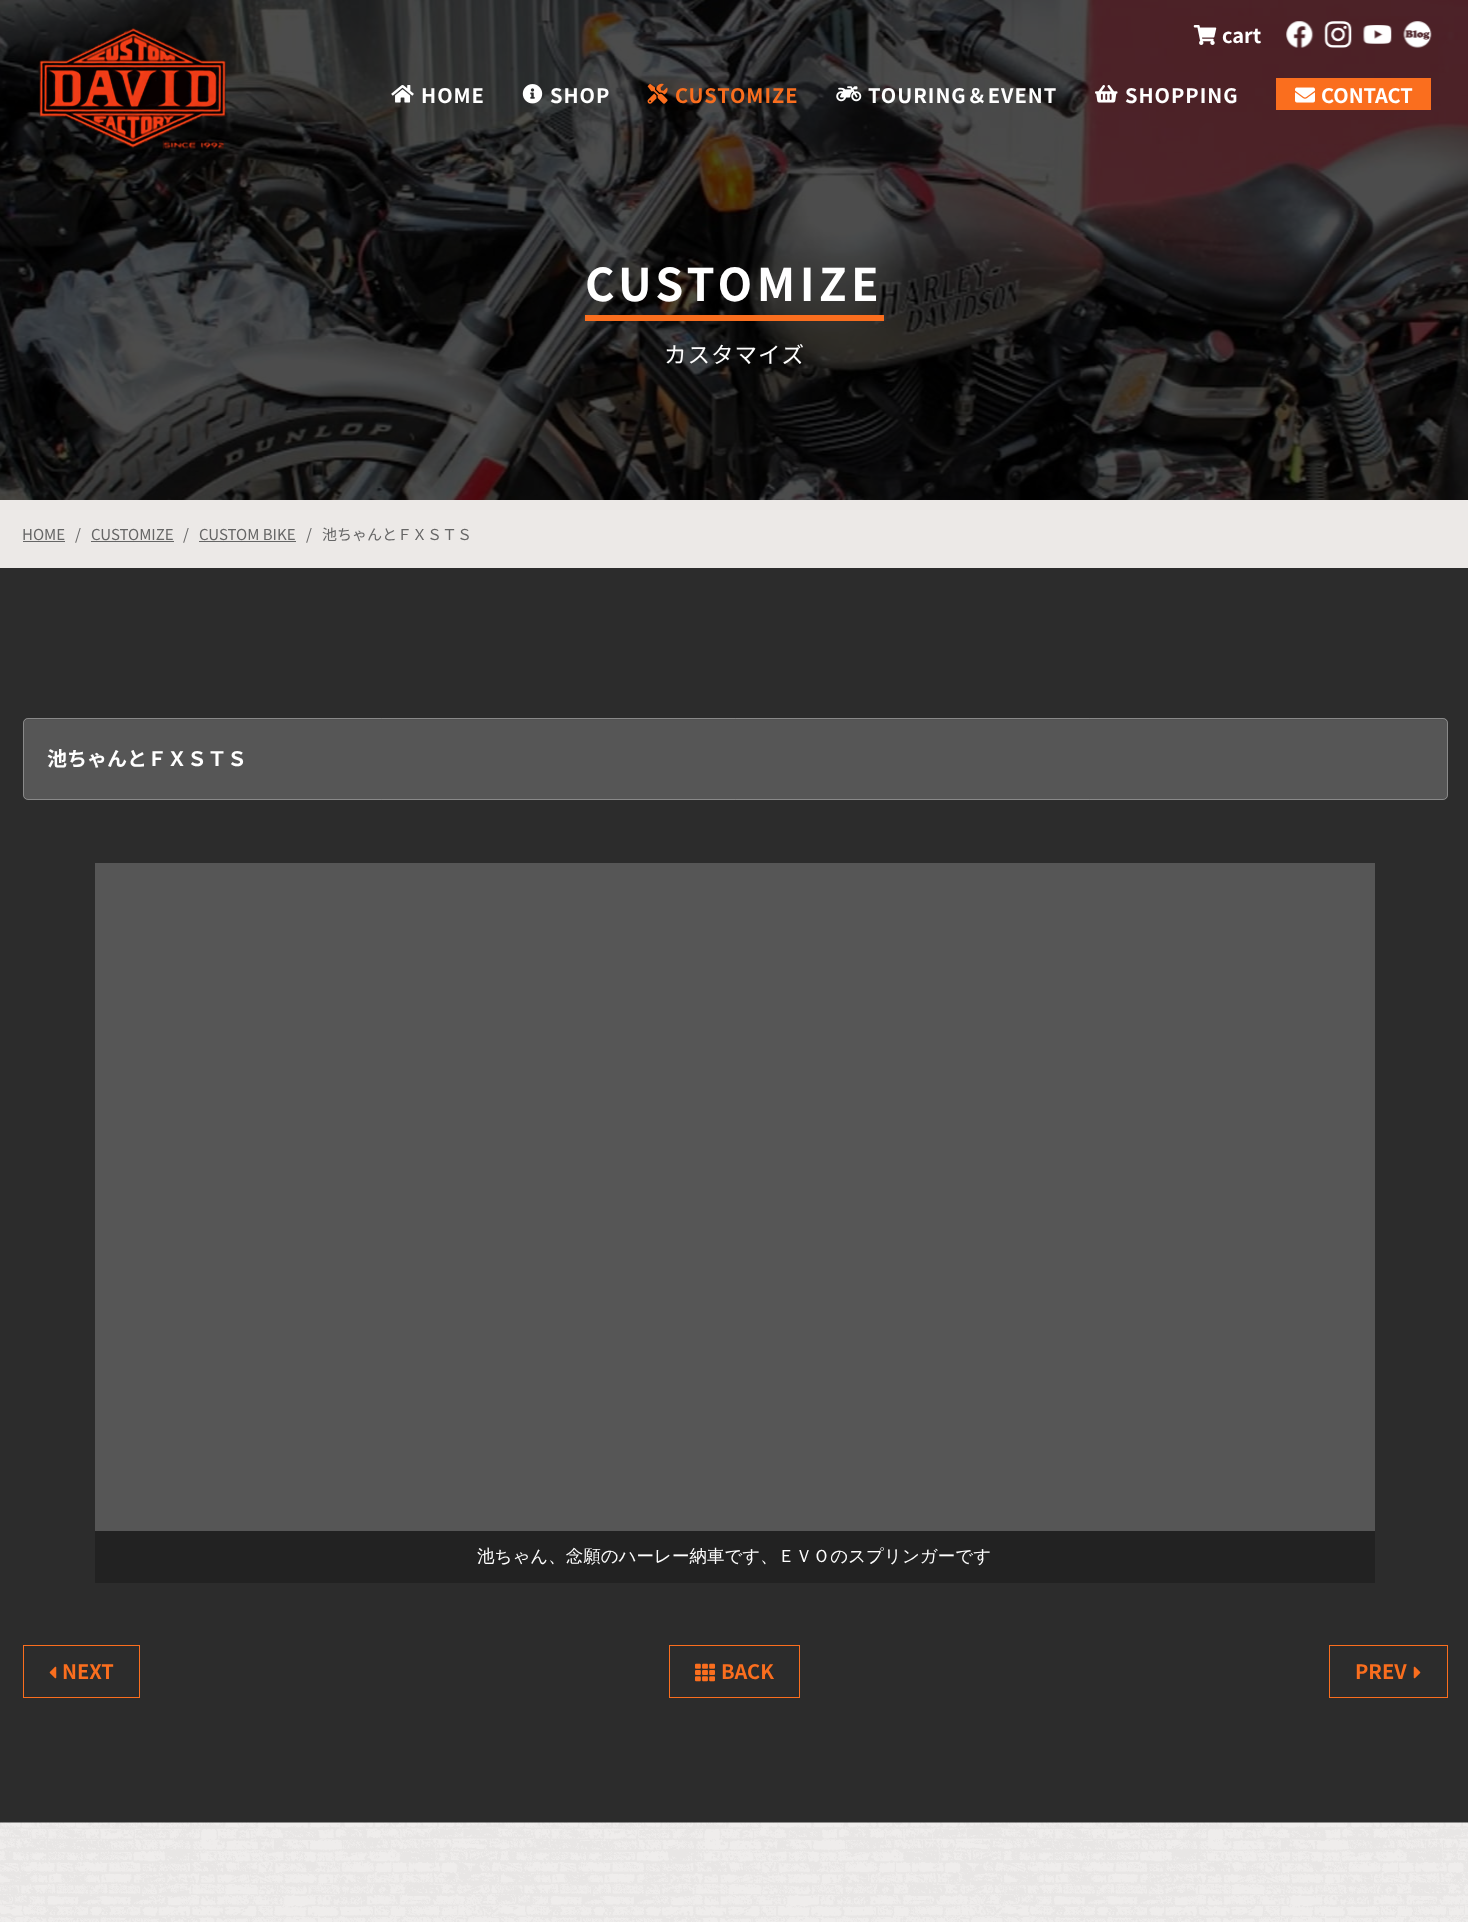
<!DOCTYPE html>
<meta charset="utf-8">
<style>body { margin: 0 } canvas { display: block }</style>
<canvas id="canvas" width="1468" height="1922"></canvas>
<script type="module">
  const canvas = document.getElementById("canvas");
  const ctx = canvas.getContext("2d");
  ctx.miterLimit = 4;
  ctx.fontKerning = "normal";
  async function loadImage(src) {
    const img = new Image();
    img.src = src;
    await img.decode();
    return img;
  }

  ctx.fillStyle = "#ece9e7";
  ctx.fillRect(0, 0, 1468, 1922);
  ctx.drawImage(await loadImage("img13.png"), 0, 0, 1468, 500);
  ctx.drawImage(await loadImage("img1.png"), 1193, 25, 24, 20);
  ctx.font = "bold 20px Noto Sans JP";
  ctx.fillStyle = "#ffffff";
  ctx.fillText("cart", 1222, 43);
  ctx.drawImage(await loadImage("img2.png"), 1286, 21, 28, 27);
  ctx.drawImage(await loadImage("img3.png"), 1324, 21, 28, 27);
  ctx.drawImage(await loadImage("img4.png"), 1363, 25, 29, 19);
  ctx.drawImage(await loadImage("img5.png"), 1403, 21, 29, 27);
  ctx.drawImage(await loadImage("img6.png"), 39, 28, 188, 121);
  ctx.drawImage(await loadImage("img7.png"), 391, 85, 23, 18);
  ctx.letterSpacing = "1px";
  ctx.fillText("HOME", 421, 103);
  ctx.drawImage(await loadImage("img8.png"), 522, 84, 21, 20);
  ctx.fillText("SHOP", 550, 103);
  ctx.drawImage(await loadImage("img9.png"), 647, 83, 21, 21);
  ctx.fillStyle = "#fa6e1e";
  ctx.fillText("CUSTOMIZE", 675, 103);
  ctx.drawImage(await loadImage("img10.png"), 836, 86, 26, 16);
  ctx.fillStyle = "#ffffff";
  ctx.fillText("TOURING＆EVENT", 868, 103);
  ctx.drawImage(await loadImage("img11.png"), 1095, 85, 23, 18);
  ctx.fillText("SHOPPING", 1125, 103);
  ctx.fillStyle = "#fa6e1e";
  ctx.fillRect(1276, 78, 155, 32);
  ctx.drawImage(await loadImage("img12.png"), 1295, 87, 20, 16);
  ctx.letterSpacing = "0px";
  ctx.fillStyle = "#ffffff";
  ctx.fillText("CONTACT", 1321, 103);
  ctx.fillStyle = "#fa6e1e";
  ctx.fillRect(585, 315, 299, 6);
  ctx.letterSpacing = "4.5px";
  ctx.font = "bold 45px Noto Sans JP";
  ctx.fillStyle = "#ffffff";
  ctx.fillText("CUSTOMIZE", 585, 301);
  ctx.letterSpacing = "1px";
  ctx.font = "22.5px Noto Sans JP";
  ctx.fillText("カスタマイズ", 664, 363);
  ctx.letterSpacing = "0px";
  ctx.font = "15px Noto Sans JP";
  ctx.fillStyle = "#666666";
  ctx.fillText("HOME", 22, 540);
  ctx.fillRect(23, 541, 42, 1);
  ctx.fillText("/", 75, 540);
  ctx.fillText("CUSTOMIZE", 91, 540);
  ctx.fillRect(91, 541, 83, 1);
  ctx.fillText("/", 183, 540);
  ctx.fillText("CUSTOM BIKE", 199, 540);
  ctx.fillRect(199, 541, 97, 1);
  ctx.fillText("/", 306, 540);
  ctx.fillText("池ちゃんとＦＸＳＴＳ", 322, 540);
  ctx.fillStyle = "#2c2c2c";
  ctx.fillRect(0, 568, 1468, 1255);
  ctx.fillStyle = "#565656";
  ctx.beginPath();
  ctx.roundRect(23, 718, 1425, 82, 5);
  ctx.fill();
  ctx.fillStyle = "#525252";
  ctx.beginPath();
  ctx.moveTo(28, 720);
  ctx.lineTo(1442, 720);
  ctx.bezierCurveTo(1445, 720, 1446, 722, 1446, 724);
  ctx.lineTo(1446, 723);
  ctx.bezierCurveTo(1446, 721, 1444, 719, 1442, 719);
  ctx.lineTo(28, 719);
  ctx.bezierCurveTo(26, 719, 24, 721, 24, 723);
  ctx.lineTo(24, 724);
  ctx.bezierCurveTo(24, 722, 25, 720, 28, 720);
  ctx.closePath();
  ctx.fill();
  ctx.beginPath();
  ctx.roundRect(23.5, 718.5, 1424, 81, 4.5);
  ctx.strokeStyle = "rgba(255, 255, 255, 0.3)";
  ctx.stroke();
  ctx.font = "bold 20px Noto Sans JP";
  ctx.fillStyle = "#ffffff";
  ctx.fillText("池ちゃんとＦＸＳＴＳ", 47, 766);
  ctx.fillStyle = "#565656";
  ctx.fillRect(95, 863, 1280, 668);
  ctx.fillStyle = "#222222";
  ctx.fillRect(95, 1531, 1280, 52);
  ctx.font = "500 17.5px WenQuanYi Zen Hei";
  ctx.fillStyle = "#ffffff";
  ctx.fillText("池ちゃん、念願のハーレー納車です、ＥＶＯのスプリンガーです", 477, 1562);
  ctx.strokeStyle = "#fa6e1e";
  ctx.strokeRect(23.5, 1645.5, 116, 52);
  ctx.drawImage(await loadImage("img14.png"), 49, 1666, 8, 13);
  ctx.font = "bold 20px Noto Sans JP";
  ctx.fillStyle = "#fa6e1e";
  ctx.fillText("NEXT", 62, 1679);
  ctx.strokeRect(669.5, 1645.5, 130, 52);
  ctx.drawImage(await loadImage("img15.png"), 695, 1663, 20, 19);
  ctx.fillText("BACK", 721, 1679);
  ctx.strokeRect(1329.5, 1645.5, 118, 52);
  ctx.fillText("PREV", 1355, 1679);
  ctx.drawImage(await loadImage("img16.png"), 1413, 1666, 8, 13);
  ctx.drawImage(await loadImage("img17.png"), 0, 1822, 1468, 100);
</script>
